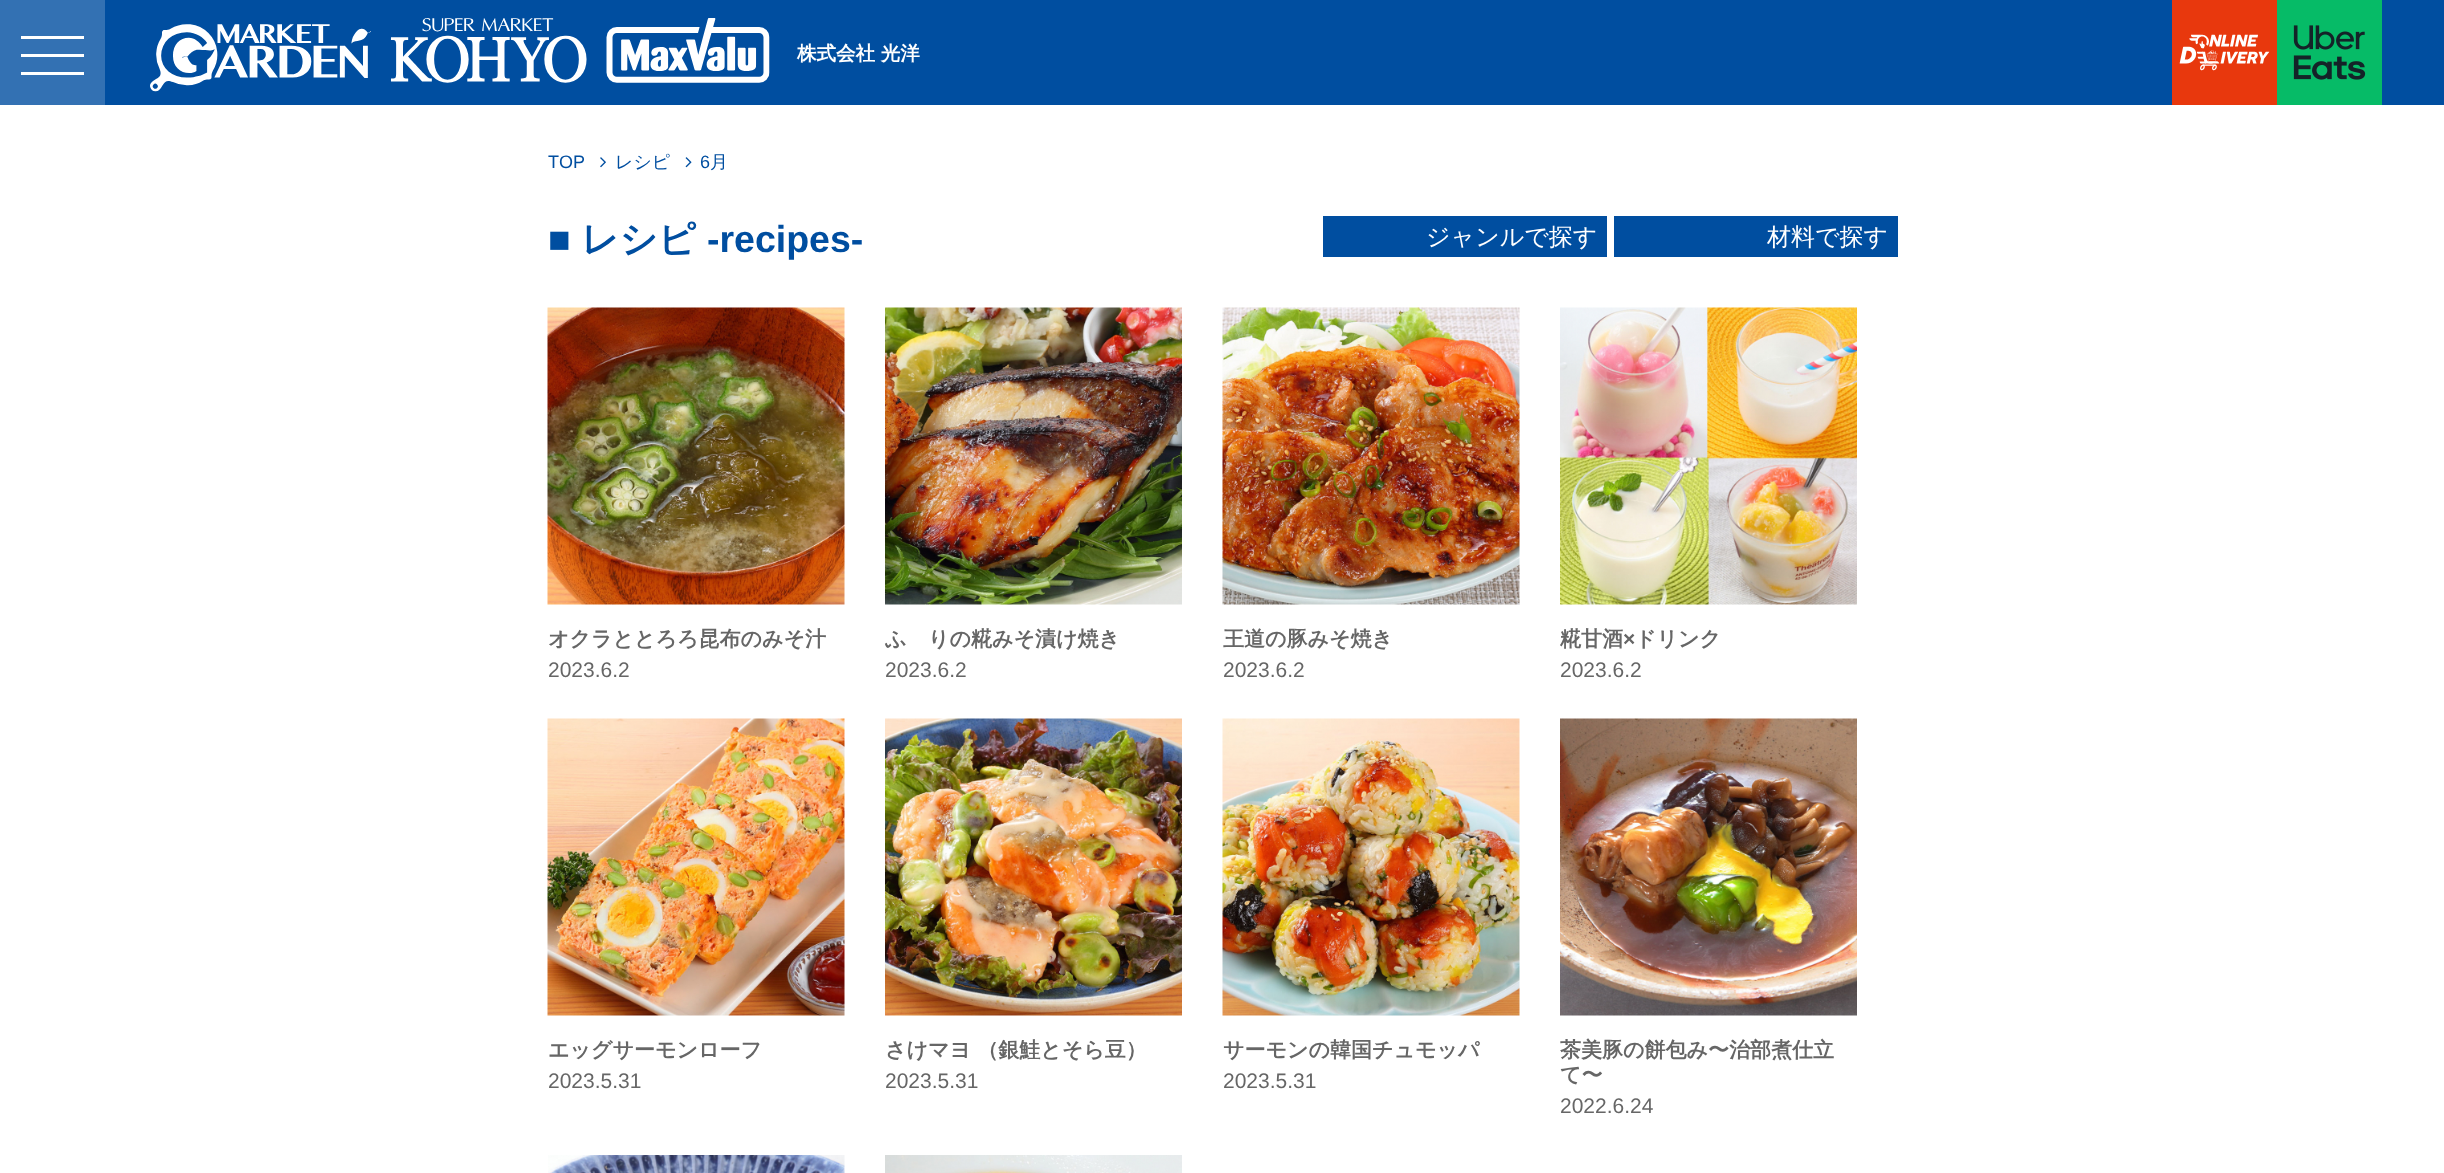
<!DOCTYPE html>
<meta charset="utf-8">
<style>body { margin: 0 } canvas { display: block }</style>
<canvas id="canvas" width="2444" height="1173"></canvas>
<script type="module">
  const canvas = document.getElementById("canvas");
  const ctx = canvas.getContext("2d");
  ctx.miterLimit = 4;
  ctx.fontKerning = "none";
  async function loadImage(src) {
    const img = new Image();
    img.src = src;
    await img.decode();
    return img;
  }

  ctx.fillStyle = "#ffffff";
  ctx.fillRect(0, 0, 2444, 1173);
  ctx.fillStyle = "#004ea0";
  ctx.fillRect(105, 0, 2339, 105);
  ctx.fillStyle = "#3371b3";
  ctx.fillRect(0, 0, 105, 105);
  ctx.fillStyle = "#ffffff";
  ctx.fillRect(21, 36, 63, 3);
  ctx.fillRect(21, 54, 63, 3);
  ctx.fillRect(21, 72, 63, 3);
  ctx.drawImage(await loadImage("img1.png"), 150, 18, 620, 74);
  ctx.font = "bold 19.5px WenQuanYi Zen Hei";
  ctx.fillText("株式会社 光洋", 797, 60);
  ctx.drawImage(await loadImage("img2.png"), 2172, 0, 105, 105);
  ctx.drawImage(await loadImage("img3.png"), 2277, 0, 105, 105);
  ctx.font = "18px Liberation Sans";
  ctx.fillStyle = "#004ea0";
  ctx.fillText("TOP", 548, 168);
  ctx.drawImage(await loadImage("img4.png"), 600, 157, 6, 11);
  ctx.font = "500 18px WenQuanYi Zen Hei";
  ctx.fillText("レシピ", 615, 168);
  ctx.drawImage(await loadImage("img5.png"), 685, 157, 7, 11);
  ctx.font = "18px Liberation Sans";
  ctx.fillText("6", 700, 168);
  ctx.font = "500 18px WenQuanYi Zen Hei";
  ctx.fillText("月", 710, 168);
  ctx.font = "bold 37.5px Liberation Sans";
  ctx.fillText("■", 548, 252);
  ctx.font = "bold 37.5px WenQuanYi Zen Hei";
  ctx.fillText("レシピ", 581, 252);
  ctx.font = "bold 37.5px Liberation Sans";
  ctx.fillText("-recipes-", 707, 252);
  ctx.fillRect(1323, 216, 284, 41);
  ctx.font = "500 24px WenQuanYi Zen Hei";
  ctx.fillStyle = "#ffffff";
  ctx.fillText("ジャンルで探す", 1426, 245);
  ctx.fillStyle = "#004ea0";
  ctx.fillRect(1614, 216, 284, 41);
  ctx.fillStyle = "#ffffff";
  ctx.fillText("材料で探す", 1767, 245);
  ctx.drawImage(await loadImage("img6.png"), 547, 307, 298, 298);
  ctx.font = "bold 21px WenQuanYi Zen Hei";
  ctx.fillStyle = "#666666";
  ctx.fillText("オクラととろろ昆布のみそ汁", 548, 646);
  ctx.font = "21px Liberation Sans";
  ctx.fillText("2023.6.2", 548, 677);
  ctx.drawImage(await loadImage("img7.png"), 885, 307, 297, 298);
  ctx.font = "bold 21px WenQuanYi Zen Hei";
  ctx.fillText("ぶりの糀みそ漬け焼き", 885, 646);
  ctx.font = "21px Liberation Sans";
  ctx.fillText("2023.6.2", 885, 677);
  ctx.drawImage(await loadImage("img8.png"), 1222, 307, 298, 298);
  ctx.font = "bold 21px WenQuanYi Zen Hei";
  ctx.fillText("王道の豚みそ焼き", 1223, 646);
  ctx.font = "21px Liberation Sans";
  ctx.fillText("2023.6.2", 1223, 677);
  ctx.drawImage(await loadImage("img9.png"), 1560, 307, 297, 298);
  ctx.font = "bold 21px WenQuanYi Zen Hei";
  ctx.fillText("糀甘酒", 1560, 646);
  ctx.font = "bold 21px Liberation Sans";
  ctx.fillText("×", 1623, 646);
  ctx.font = "bold 21px WenQuanYi Zen Hei";
  ctx.fillText("ドリンク", 1635, 646);
  ctx.font = "21px Liberation Sans";
  ctx.fillText("2023.6.2", 1560, 677);
  ctx.drawImage(await loadImage("img10.png"), 547, 718, 298, 298);
  ctx.font = "bold 21px WenQuanYi Zen Hei";
  ctx.fillText("エッグサーモンローフ", 548, 1057);
  ctx.font = "21px Liberation Sans";
  ctx.fillText("2023.5.31", 548, 1088);
  ctx.drawImage(await loadImage("img11.png"), 885, 718, 297, 298);
  ctx.font = "bold 21px WenQuanYi Zen Hei";
  ctx.fillText("さけマヨ （銀鮭とそら豆）", 885, 1057);
  ctx.font = "21px Liberation Sans";
  ctx.fillText("2023.5.31", 885, 1088);
  ctx.drawImage(await loadImage("img12.png"), 1222, 718, 298, 298);
  ctx.font = "bold 21px WenQuanYi Zen Hei";
  ctx.fillText("サーモンの韓国チュモッパ", 1223, 1057);
  ctx.font = "21px Liberation Sans";
  ctx.fillText("2023.5.31", 1223, 1088);
  ctx.drawImage(await loadImage("img13.png"), 1560, 718, 297, 298);
  ctx.font = "bold 21px WenQuanYi Zen Hei";
  ctx.fillText("茶美豚の餅包み〜治部煮仕立", 1560, 1057);
  ctx.fillText("て〜", 1560, 1082);
  ctx.font = "21px Liberation Sans";
  ctx.fillText("2022.6.24", 1560, 1113);
  ctx.drawImage(await loadImage("img14.png"), 548, 1155, 297, 18);
  ctx.drawImage(await loadImage("img15.png"), 885, 1155, 297, 18);
</script>
